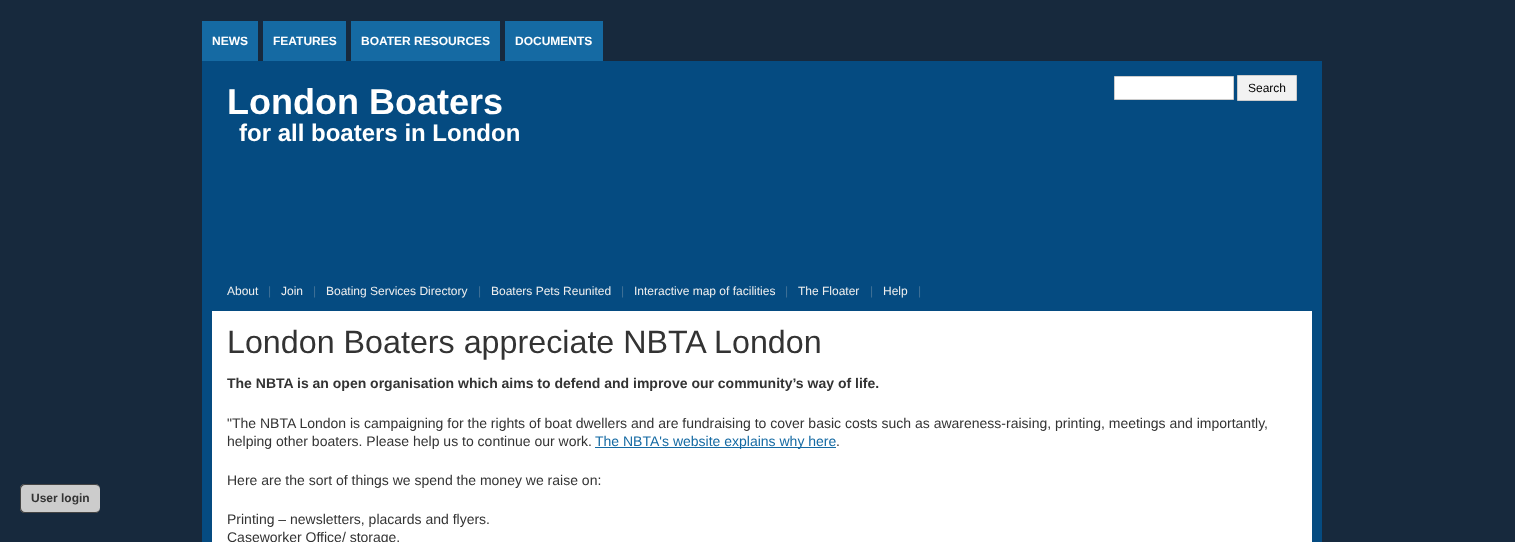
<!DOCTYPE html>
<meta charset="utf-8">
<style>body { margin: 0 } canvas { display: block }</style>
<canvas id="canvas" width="1515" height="542"></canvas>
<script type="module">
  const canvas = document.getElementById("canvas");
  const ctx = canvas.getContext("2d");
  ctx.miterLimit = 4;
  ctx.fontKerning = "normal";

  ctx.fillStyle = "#17293d";
  ctx.fillRect(0, 0, 1515, 542);
  ctx.fillStyle = "#cccccc";
  ctx.beginPath();
  ctx.roundRect(20, 484, 80, 29, 5);
  ctx.fill();
  ctx.fillStyle = "#444444";
  ctx.beginPath();
  ctx.moveTo(25, 484);
  ctx.lineTo(95, 484);
  ctx.bezierCurveTo(98, 484, 100, 486, 100, 489);
  ctx.lineTo(100, 508);
  ctx.bezierCurveTo(100, 511, 98, 513, 95, 513);
  ctx.lineTo(25, 513);
  ctx.bezierCurveTo(22, 513, 20, 511, 20, 508);
  ctx.lineTo(20, 489);
  ctx.bezierCurveTo(20, 486, 22, 484, 25, 484);
  ctx.closePath();
  ctx.moveTo(25, 485);
  ctx.lineTo(95, 485);
  ctx.bezierCurveTo(98, 485, 100, 487, 100, 489);
  ctx.lineTo(100, 508);
  ctx.bezierCurveTo(100, 510, 98, 512, 95, 512);
  ctx.lineTo(25, 512);
  ctx.bezierCurveTo(23, 512, 21, 510, 21, 508);
  ctx.lineTo(21, 489);
  ctx.bezierCurveTo(21, 487, 23, 485, 25, 485);
  ctx.closePath();
  ctx.fill("evenodd");
  ctx.font = "bold 12px Liberation Sans";
  ctx.fillStyle = "#333333";
  ctx.fillText("User login", 31, 502);
  ctx.fillStyle = "#156aa3";
  ctx.fillRect(202, 21, 56, 40);
  ctx.fillStyle = "#ffffff";
  ctx.fillText("NEWS", 212, 45);
  ctx.fillStyle = "#156aa3";
  ctx.fillRect(263, 21, 83, 40);
  ctx.fillStyle = "#ffffff";
  ctx.fillText("FEATURES", 273, 45);
  ctx.fillStyle = "#156aa3";
  ctx.fillRect(351, 21, 149, 40);
  ctx.fillStyle = "#ffffff";
  ctx.fillText("BOATER RESOURCES", 361, 45);
  ctx.fillStyle = "#156aa3";
  ctx.fillRect(505, 21, 98, 40);
  ctx.fillStyle = "#ffffff";
  ctx.fillText("DOCUMENTS", 515, 45);
  ctx.strokeStyle = "#054b81";
  ctx.lineWidth = 10;
  ctx.strokeRect(207, 66, 1110, 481);
  ctx.fillStyle = "#054b81";
  ctx.fillRect(212, 71, 1100, 240);
  ctx.font = "bold 36px Liberation Sans";
  ctx.fillStyle = "#ffffff";
  ctx.fillText("London Boaters", 227, 114);
  ctx.font = "bold 24px Liberation Sans";
  ctx.fillText("for all boaters in London", 239, 141);
  ctx.beginPath();
  ctx.rect(1114.5, 76.5, 119, 23);
  ctx.fill();
  ctx.strokeStyle = "#cccccc";
  ctx.lineWidth = 1;
  ctx.stroke();
  ctx.fillStyle = "#f2f2f2";
  ctx.beginPath();
  ctx.rect(1237.5, 75.5, 59, 25);
  ctx.fill();
  ctx.stroke();
  ctx.font = "12px Liberation Sans";
  ctx.fillStyle = "#000000";
  ctx.fillText("Search", 1248, 92);
  ctx.fillStyle = "#eeeeee";
  ctx.fillText("About", 227, 295);
  ctx.fillStyle = "#417297";
  ctx.fillText("|", 268, 295);
  ctx.fillStyle = "#eeeeee";
  ctx.fillText("Join", 281, 295);
  ctx.fillStyle = "#417297";
  ctx.fillText("|", 313, 295);
  ctx.fillStyle = "#eeeeee";
  ctx.fillText("Boating Services Directory", 326, 295);
  ctx.fillStyle = "#417297";
  ctx.fillText("|", 478, 295);
  ctx.fillStyle = "#eeeeee";
  ctx.fillText("Boaters Pets Reunited", 491, 295);
  ctx.fillStyle = "#417297";
  ctx.fillText("|", 621, 295);
  ctx.fillStyle = "#eeeeee";
  ctx.fillText("Interactive map of facilities", 634, 295);
  ctx.fillStyle = "#417297";
  ctx.fillText("|", 785, 295);
  ctx.fillStyle = "#eeeeee";
  ctx.fillText("The Floater", 798, 295);
  ctx.fillStyle = "#417297";
  ctx.fillText("|", 870, 295);
  ctx.fillStyle = "#eeeeee";
  ctx.fillText("Help", 883, 295);
  ctx.fillStyle = "#417297";
  ctx.fillText("|", 918, 295);
  ctx.fillStyle = "#ffffff";
  ctx.fillRect(212, 311, 1100, 231);
  ctx.font = "32.25px Liberation Sans";
  ctx.fillStyle = "#333333";
  ctx.fillText("London Boaters appreciate NBTA London", 227, 353);
  ctx.font = "bold 14px Liberation Sans";
  ctx.fillText("The NBTA is an open organisation which aims to defend and improve our community’s way of life.", 227, 388);
  ctx.font = "14px Liberation Sans";
  ctx.fillText("\"The NBTA London is campaigning for the rights of boat dwellers and are fundraising to cover basic costs such as awareness-raising, printing, meetings and importantly,", 227, 428);
  ctx.fillText("helping other boaters. Please help us to continue our work.", 227, 446);
  ctx.fillStyle = "#156aa3";
  ctx.fillRect(595, 447, 241, 1);
  ctx.fillText("The NBTA's website explains why here", 595, 446);
  ctx.fillStyle = "#333333";
  ctx.fillText(".", 836, 446);
  ctx.fillText("Here are the sort of things we spend the money we raise on:", 227, 485);
  ctx.fillText("Printing – newsletters, placards and flyers.", 227, 524);
  ctx.fillText("Caseworker Office/ storage.", 227, 542);
</script>
